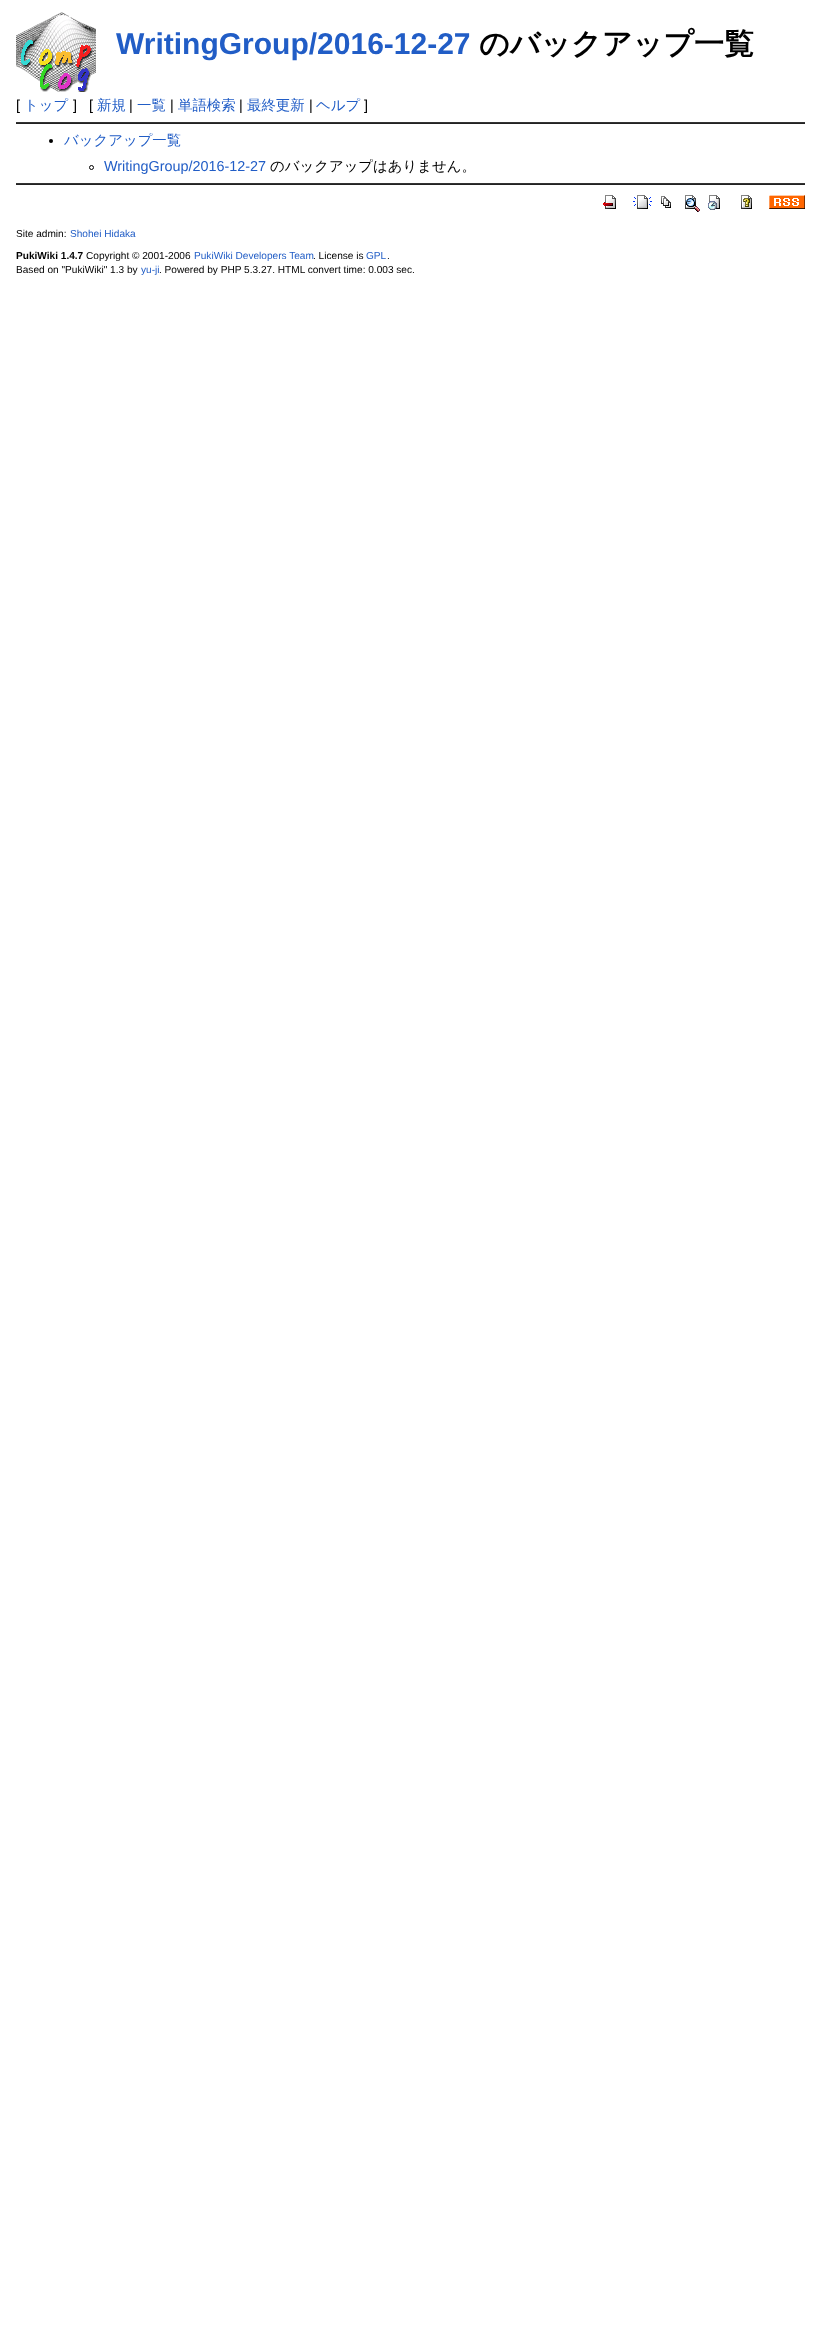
<!DOCTYPE html>
<meta charset="utf-8">
<style>body { margin: 0 } canvas { display: block }</style>
<canvas id="canvas" width="821" height="2327"></canvas>
<script type="module">
  const canvas = document.getElementById("canvas");
  const ctx = canvas.getContext("2d");
  ctx.miterLimit = 4;
  ctx.fontKerning = "normal";
  async function loadImage(src) {
    const img = new Image();
    img.src = src;
    await img.decode();
    return img;
  }

  ctx.fillStyle = "#ffffff";
  ctx.fillRect(0, 0, 821, 2327);
  ctx.drawImage(await loadImage("img1.png"), 16, 12, 80, 80);
  ctx.font = "bold 30px Liberation Sans";
  ctx.fillStyle = "#215dc6";
  ctx.fillText("WritingGroup/2016-12-27", 116, 54);
  ctx.font = "bold 30px WenQuanYi Zen Hei";
  ctx.fillStyle = "#000000";
  ctx.fillText("のバックアップ一覧", 479, 54);
  ctx.font = "14.4px Liberation Sans";
  ctx.fillText("[", 16, 110);
  ctx.font = "500 14.4px WenQuanYi Zen Hei";
  ctx.fillStyle = "#215dc6";
  ctx.fillText("トップ", 24, 110);
  ctx.font = "14.4px Liberation Sans";
  ctx.fillStyle = "#000000";
  ctx.fillText("]", 73, 110);
  ctx.fillText("[", 89, 110);
  ctx.font = "500 14.4px WenQuanYi Zen Hei";
  ctx.fillStyle = "#215dc6";
  ctx.fillText("新規", 97, 110);
  ctx.font = "14.4px Liberation Sans";
  ctx.fillStyle = "#000000";
  ctx.fillText("|", 129, 110);
  ctx.font = "500 14.4px WenQuanYi Zen Hei";
  ctx.fillStyle = "#215dc6";
  ctx.fillText("一覧", 137, 110);
  ctx.font = "14.4px Liberation Sans";
  ctx.fillStyle = "#000000";
  ctx.fillText("|", 170, 110);
  ctx.font = "500 14.4px WenQuanYi Zen Hei";
  ctx.fillStyle = "#215dc6";
  ctx.fillText("単語検索", 178, 110);
  ctx.font = "14.4px Liberation Sans";
  ctx.fillStyle = "#000000";
  ctx.fillText("|", 239, 110);
  ctx.font = "500 14.4px WenQuanYi Zen Hei";
  ctx.fillStyle = "#215dc6";
  ctx.fillText("最終更新", 247, 110);
  ctx.font = "14.4px Liberation Sans";
  ctx.fillStyle = "#000000";
  ctx.fillText("|", 309, 110);
  ctx.font = "500 14.4px WenQuanYi Zen Hei";
  ctx.fillStyle = "#215dc6";
  ctx.fillText("ヘルプ", 316, 110);
  ctx.font = "14.4px Liberation Sans";
  ctx.fillStyle = "#000000";
  ctx.fillText("]", 364, 110);
  ctx.fillStyle = "#333333";
  ctx.fillRect(16, 122, 789, 1);
  ctx.fillStyle = "#222222";
  ctx.fillRect(16, 123, 789, 1);
  ctx.fillStyle = "#000000";
  ctx.beginPath();
  ctx.arc(51, 141, 2, 0, Math.PI * 2);
  ctx.fill();
  ctx.font = "500 14.4px WenQuanYi Zen Hei";
  ctx.fillStyle = "#215dc6";
  ctx.fillText("バックアップ一覧", 64, 145);
  ctx.beginPath();
  ctx.arc(91.5, 167.5, 2, 0, Math.PI * 2);
  ctx.strokeStyle = "#000000";
  ctx.stroke();
  ctx.font = "14.4px Liberation Sans";
  ctx.fillText("WritingGroup/2016-12-27", 104, 171);
  ctx.font = "500 14.4px WenQuanYi Zen Hei";
  ctx.fillStyle = "#000000";
  ctx.fillText("のバックアップはありません。", 270, 171);
  ctx.fillStyle = "#333333";
  ctx.fillRect(16, 183, 789, 1);
  ctx.fillStyle = "#222222";
  ctx.fillRect(16, 184, 789, 1);
  ctx.drawImage(await loadImage("img2.png"), 603, 195, 13, 14);
  ctx.drawImage(await loadImage("img3.png"), 633, 195, 19, 14);
  ctx.drawImage(await loadImage("img4.png"), 661, 196, 10, 12);
  ctx.drawImage(await loadImage("img5.png"), 685, 195, 15, 17);
  ctx.drawImage(await loadImage("img6.png"), 708, 195, 12, 15);
  ctx.drawImage(await loadImage("img7.png"), 741, 195, 11, 14);
  ctx.drawImage(await loadImage("img8.png"), 769, 195, 36, 14);
  ctx.font = "10.1px Liberation Sans";
  ctx.fillStyle = "#000000";
  ctx.fillText("Site admin:", 16, 237);
  ctx.fillStyle = "#215dc6";
  ctx.fillText("Shohei Hidaka", 70, 237);
  ctx.font = "bold 10.1px Liberation Sans";
  ctx.fillStyle = "#000000";
  ctx.fillText("PukiWiki 1.4.7", 16, 259);
  ctx.font = "10.1px Liberation Sans";
  ctx.fillText("Copyright © 2001-2006", 86, 259);
  ctx.fillStyle = "#215dc6";
  ctx.fillText("PukiWiki Developers Team", 194, 259);
  ctx.fillStyle = "#000000";
  ctx.fillText(". License is", 313, 259);
  ctx.fillStyle = "#215dc6";
  ctx.fillText("GPL", 366, 259);
  ctx.fillStyle = "#000000";
  ctx.fillText(".", 387, 259);
  ctx.fillText("Based on \"PukiWiki\" 1.3 by", 16, 273);
  ctx.fillStyle = "#215dc6";
  ctx.fillText("yu-ji", 141, 273);
  ctx.fillStyle = "#000000";
  ctx.fillText(". Powered by PHP 5.3.27. HTML convert time: 0.003 sec.", 159, 273);
</script>
